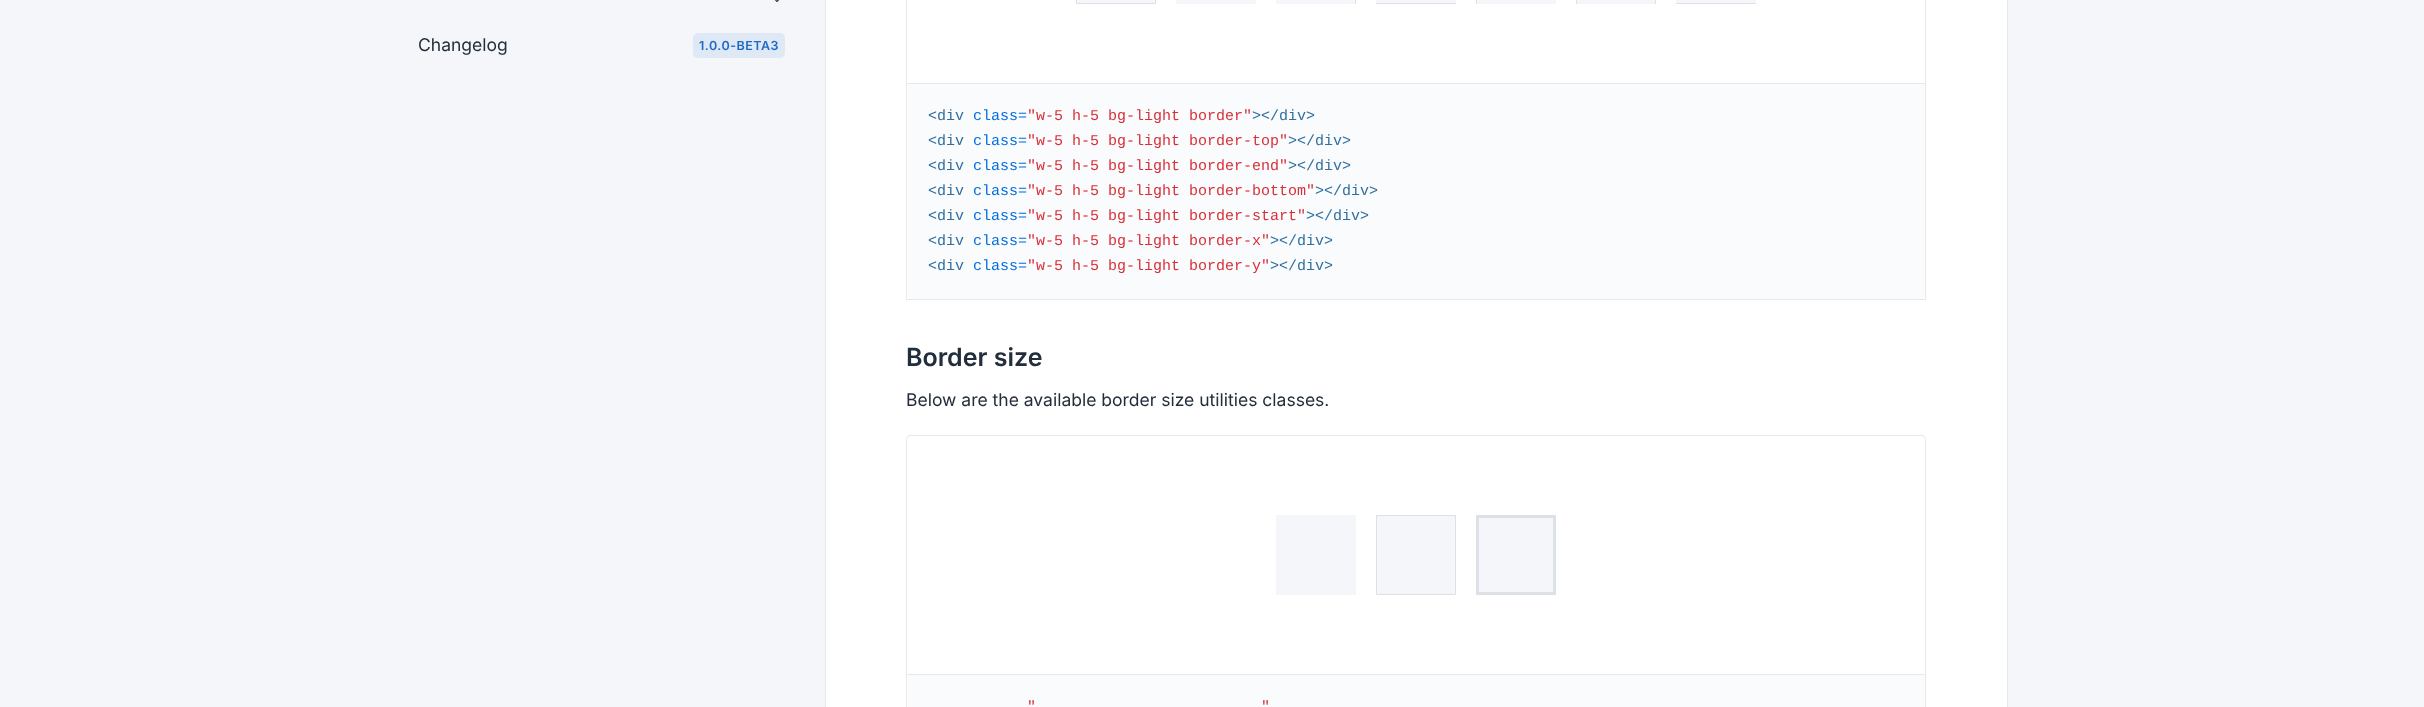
<!DOCTYPE html>
<meta charset="utf-8">
<style>body { margin: 0 } canvas { display: block }</style>
<canvas id="canvas" width="2424" height="707"></canvas>
<script type="module">
  const canvas = document.getElementById("canvas");
  const ctx = canvas.getContext("2d");
  ctx.miterLimit = 4;
  ctx.fontKerning = "normal";

  ctx.fillStyle = "#f4f6fa";
  ctx.fillRect(0, 0, 2424, 707);
  ctx.fillStyle = "#232e3c";
  ctx.beginPath();
  ctx.moveTo(776, 1.5);
  ctx.lineTo(780.5, -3);
  ctx.lineTo(781.5, -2);
  ctx.lineTo(777, 2);
  ctx.closePath();
  ctx.fill();
  ctx.beginPath();
  ctx.moveTo(772.5, -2);
  ctx.lineTo(773.5, -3);
  ctx.lineTo(777.5, 1.5);
  ctx.lineTo(777, 2);
  ctx.closePath();
  ctx.fill();
  ctx.font = "17.5px Inter";
  ctx.fillText("Changelog", 418, 51);
  ctx.fillStyle = "#dfe8f5";
  ctx.beginPath();
  ctx.roundRect(693, 33, 92, 25, 5);
  ctx.fill();
  ctx.letterSpacing = "0.5px";
  ctx.font = "600 12.5px Inter";
  ctx.fillStyle = "#206bc4";
  ctx.fillText("1.0.0-BETA3", 699, 50);
  ctx.fillStyle = "#ffffff";
  ctx.beginPath();
  ctx.rect(825.5, -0.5, 1182, 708);
  ctx.fill();
  ctx.strokeStyle = "#e6e8e9";
  ctx.stroke();
  ctx.strokeRect(906.5, -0.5, 1019, 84);
  ctx.fillStyle = "#f4f6fa";
  ctx.beginPath();
  ctx.rect(1076.5, -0.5, 79, 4);
  ctx.fill();
  ctx.strokeStyle = "#dde0e5";
  ctx.stroke();
  ctx.fillRect(1176, 0, 80, 4);
  ctx.fillRect(1276, 0, 80, 4);
  ctx.fillStyle = "#dde0e5";
  ctx.fillRect(1355, 0, 1, 4);
  ctx.fillStyle = "#f4f6fa";
  ctx.fillRect(1376, 0, 80, 3);
  ctx.fillStyle = "#dde0e5";
  ctx.fillRect(1376, 3, 80, 1);
  ctx.fillStyle = "#f4f6fa";
  ctx.fillRect(1476, 0, 80, 4);
  ctx.fillStyle = "#dde0e5";
  ctx.fillRect(1476, 0, 1, 4);
  ctx.fillStyle = "#f4f6fa";
  ctx.fillRect(1576, 0, 80, 4);
  ctx.fillStyle = "#dde0e5";
  ctx.fillRect(1655, 0, 1, 4);
  ctx.fillRect(1576, 0, 1, 4);
  ctx.fillStyle = "#f4f6fa";
  ctx.fillRect(1676, 0, 80, 3);
  ctx.fillStyle = "#dde0e5";
  ctx.fillRect(1676, 3, 80, 1);
  ctx.fillStyle = "#e6e8e9";
  ctx.fillRect(1925, 84, 1, 216);
  ctx.fillRect(906, 299, 1020, 1);
  ctx.fillRect(906, 84, 1, 216);
  ctx.fillStyle = "#fafbfd";
  ctx.beginPath();
  ctx.roundRect(908, 84, 1017, 215, [0, 0, 4, 4]);
  ctx.fill();
  ctx.letterSpacing = "0px";
  ctx.font = "15px Liberation Mono";
  ctx.fillStyle = "#2f6f9f";
  ctx.fillText("<div", 928, 120);
  ctx.fillStyle = "#006ee0";
  ctx.fillText("class=", 973, 120);
  ctx.fillStyle = "#d73038";
  ctx.fillText("\"w-5 h-5 bg-light border\"", 1027, 120);
  ctx.fillStyle = "#2f6f9f";
  ctx.fillText("><\/div>", 1252, 120);
  ctx.fillText("<div", 928, 145);
  ctx.fillStyle = "#006ee0";
  ctx.fillText("class=", 973, 145);
  ctx.fillStyle = "#d73038";
  ctx.fillText("\"w-5 h-5 bg-light border-top\"", 1027, 145);
  ctx.fillStyle = "#2f6f9f";
  ctx.fillText("><\/div>", 1288, 145);
  ctx.fillText("<div", 928, 170);
  ctx.fillStyle = "#006ee0";
  ctx.fillText("class=", 973, 170);
  ctx.fillStyle = "#d73038";
  ctx.fillText("\"w-5 h-5 bg-light border-end\"", 1027, 170);
  ctx.fillStyle = "#2f6f9f";
  ctx.fillText("><\/div>", 1288, 170);
  ctx.fillText("<div", 928, 195);
  ctx.fillStyle = "#006ee0";
  ctx.fillText("class=", 973, 195);
  ctx.fillStyle = "#d73038";
  ctx.fillText("\"w-5 h-5 bg-light border-bottom\"", 1027, 195);
  ctx.fillStyle = "#2f6f9f";
  ctx.fillText("><\/div>", 1315, 195);
  ctx.fillText("<div", 928, 220);
  ctx.fillStyle = "#006ee0";
  ctx.fillText("class=", 973, 220);
  ctx.fillStyle = "#d73038";
  ctx.fillText("\"w-5 h-5 bg-light border-start\"", 1027, 220);
  ctx.fillStyle = "#2f6f9f";
  ctx.fillText("><\/div>", 1306, 220);
  ctx.fillText("<div", 928, 245);
  ctx.fillStyle = "#006ee0";
  ctx.fillText("class=", 973, 245);
  ctx.fillStyle = "#d73038";
  ctx.fillText("\"w-5 h-5 bg-light border-x\"", 1027, 245);
  ctx.fillStyle = "#2f6f9f";
  ctx.fillText("><\/div>", 1270, 245);
  ctx.fillText("<div", 928, 270);
  ctx.fillStyle = "#006ee0";
  ctx.fillText("class=", 973, 270);
  ctx.fillStyle = "#d73038";
  ctx.fillText("\"w-5 h-5 bg-light border-y\"", 1027, 270);
  ctx.fillStyle = "#2f6f9f";
  ctx.fillText("><\/div>", 1270, 270);
  ctx.font = "600 25px Inter";
  ctx.fillStyle = "#232e3c";
  ctx.fillText("Border size", 906, 366);
  ctx.font = "17.5px Inter";
  ctx.fillText("Below are the available border size utilities classes.", 906, 406);
  ctx.beginPath();
  ctx.roundRect(906.5, 435.5, 1019, 239, [3.5, 3.5, 0, 0]);
  ctx.strokeStyle = "#e6e8e9";
  ctx.stroke();
  ctx.fillStyle = "#f4f6fa";
  ctx.fillRect(1276, 515, 80, 80);
  ctx.beginPath();
  ctx.rect(1376.5, 515.5, 79, 79);
  ctx.fill();
  ctx.strokeStyle = "#dde0e5";
  ctx.stroke();
  ctx.beginPath();
  ctx.rect(1477.5, 516.5, 77, 77);
  ctx.fill();
  ctx.lineWidth = 3;
  ctx.stroke();
  ctx.fillStyle = "#e6e8e9";
  ctx.fillRect(1925, 675, 1, 32);
  ctx.fillRect(906, 675, 1, 32);
  ctx.fillStyle = "#fafbfd";
  ctx.fillRect(908, 675, 1017, 32);
  ctx.font = "15px Liberation Mono";
  ctx.fillStyle = "#d73038";
  ctx.fillText("\"", 1027, 711);
  ctx.fillText("\"", 1261, 711);
</script>
